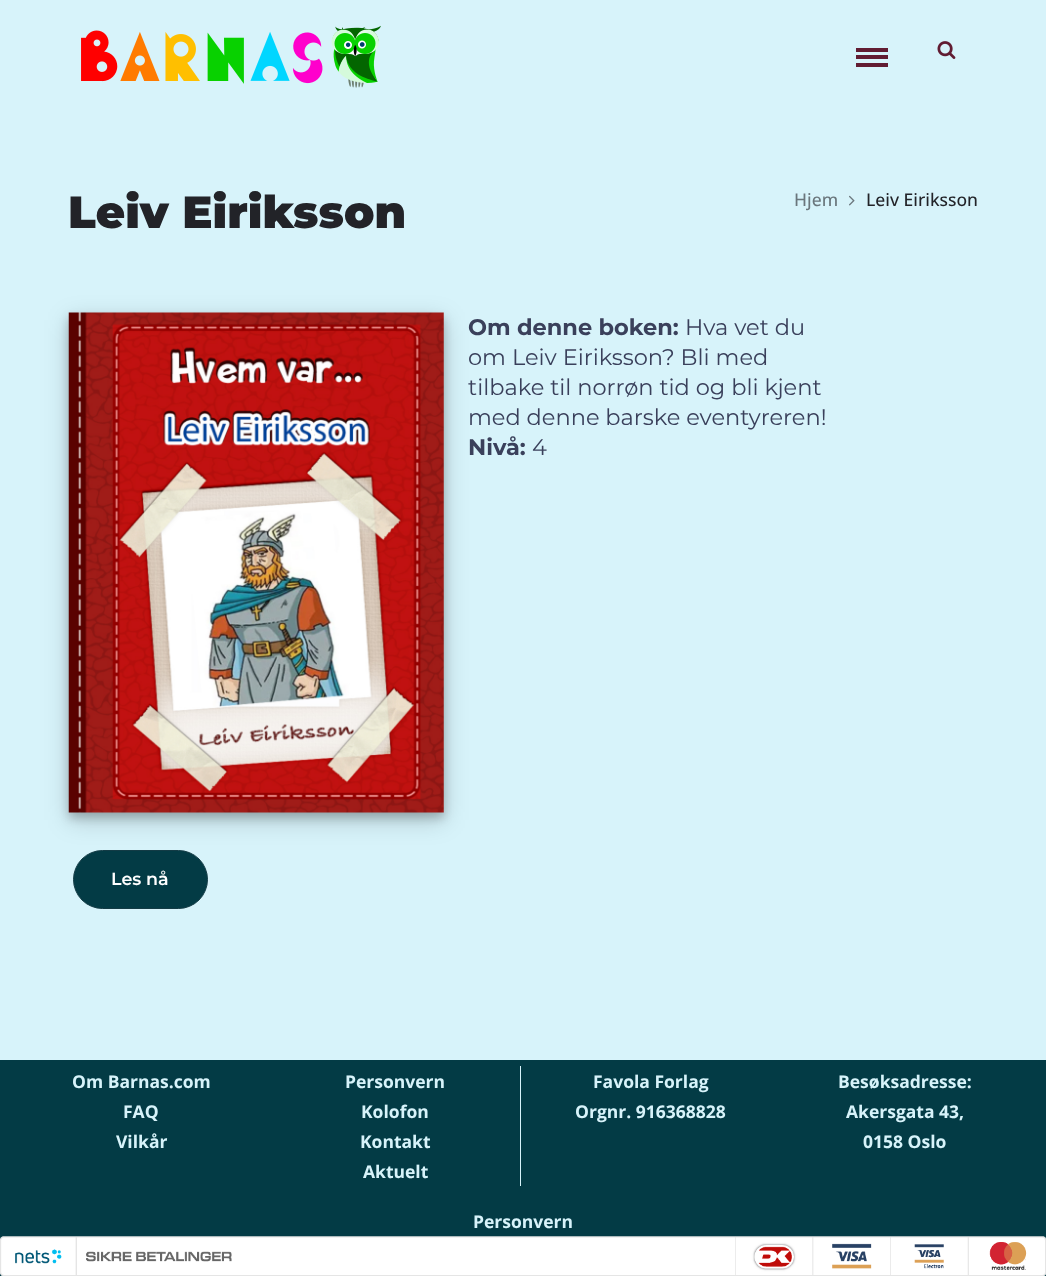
<!DOCTYPE html>
<meta charset="utf-8">
<style>body { margin: 0 } canvas { display: block }</style>
<canvas id="canvas" width="1046" height="1276"></canvas>
<script type="module">
  const canvas = document.getElementById("canvas");
  const ctx = canvas.getContext("2d");
  ctx.miterLimit = 4;
  ctx.fontKerning = "normal";
  async function loadImage(src) {
    const img = new Image();
    img.src = src;
    await img.decode();
    return img;
  }

  ctx.fillStyle = "#d7f3fa";
  ctx.fillRect(0, 0, 1046, 1276);
  ctx.drawImage(await loadImage("img1.png"), 81, 25, 300, 63);
  ctx.fillStyle = "#611c32";
  ctx.fillRect(856, 55, 32, 4);
  ctx.fillRect(856, 48, 32, 4);
  ctx.fillRect(856, 63, 32, 4);
  ctx.drawImage(await loadImage("img2.png"), 937, 41, 19, 18);
  ctx.font = "900 45px Montserrat";
  ctx.fillStyle = "#222328";
  ctx.fillText("Leiv Eiriksson", 68, 228);
  ctx.font = "500 17.5px Open Sans";
  ctx.fillStyle = "#6a767c";
  ctx.fillText("Hjem", 794, 206);
  ctx.drawImage(await loadImage("img3.png"), 849, 195, 6, 11);
  ctx.fillStyle = "#222328";
  ctx.fillText("Leiv Eiriksson", 866, 206);
  ctx.fillStyle = "rgba(0, 0, 0, 0.19)";
  ctx.filter = "blur(12.5px)";
  ctx.beginPath();
  ctx.rect(69, 320, 375, 500);
  ctx.fill();
  ctx.filter = "none";
  ctx.font = "bold 22.5px Montserrat";
  ctx.fillStyle = "#3a405b";
  ctx.fillText("Om denne boken:", 468, 335);
  ctx.font = "22.5px Montserrat";
  ctx.fillText("Hva vet du", 685, 335);
  ctx.fillText("om Leiv Eiriksson? Bli med", 468, 365);
  ctx.fillText("tilbake til norrøn tid og bli kjent", 468, 395);
  ctx.fillText("med denne barske eventyreren!", 468, 425);
  ctx.font = "bold 22.5px Montserrat";
  ctx.fillText("Nivå:", 468, 455);
  ctx.font = "22.5px Montserrat";
  ctx.fillText("4", 532, 455);
  ctx.fillStyle = "rgba(0, 0, 0, 0.2)";
  ctx.filter = "blur(5px)";
  ctx.beginPath();
  ctx.rect(69, 318, 375, 500);
  ctx.fill();
  ctx.filter = "none";
  ctx.drawImage(await loadImage("img4.png"), 68, 312, 376, 501);
  ctx.fillStyle = "#033b45";
  ctx.beginPath();
  ctx.roundRect(73.5, 850.5, 134, 58, 29);
  ctx.fill();
  ctx.strokeStyle = "#133b45";
  ctx.stroke();
  ctx.font = "600 17.5px Montserrat";
  ctx.fillStyle = "#ffffff";
  ctx.fillText("Les nå", 111, 885);
  ctx.fillStyle = "#033b45";
  ctx.fillRect(0, 1060, 1046, 216);
  ctx.font = "bold 17.5px Open Sans";
  ctx.fillStyle = "#d7f3fa";
  ctx.fillText("Om Barnas.com", 72, 1088);
  ctx.fillText("FAQ", 123, 1118);
  ctx.fillText("Vilkår", 116, 1148);
  ctx.fillRect(520, 1066, 1, 120);
  ctx.fillText("Personvern", 345, 1088);
  ctx.fillText("Kolofon", 361, 1118);
  ctx.fillText("Kontakt", 360, 1148);
  ctx.fillText("Aktuelt", 363, 1178);
  ctx.fillText("Favola Forlag", 593, 1088);
  ctx.fillText("Orgnr. 916368828", 575, 1118);
  ctx.fillText("Besøksadresse:", 838, 1088);
  ctx.fillText("Akersgata 43,", 846, 1118);
  ctx.fillText("0158 Oslo", 863, 1148);
  ctx.fillText("Personvern", 473, 1228);
  ctx.drawImage(await loadImage("img5.png"), 0, 1236, 1046, 40);
</script>
